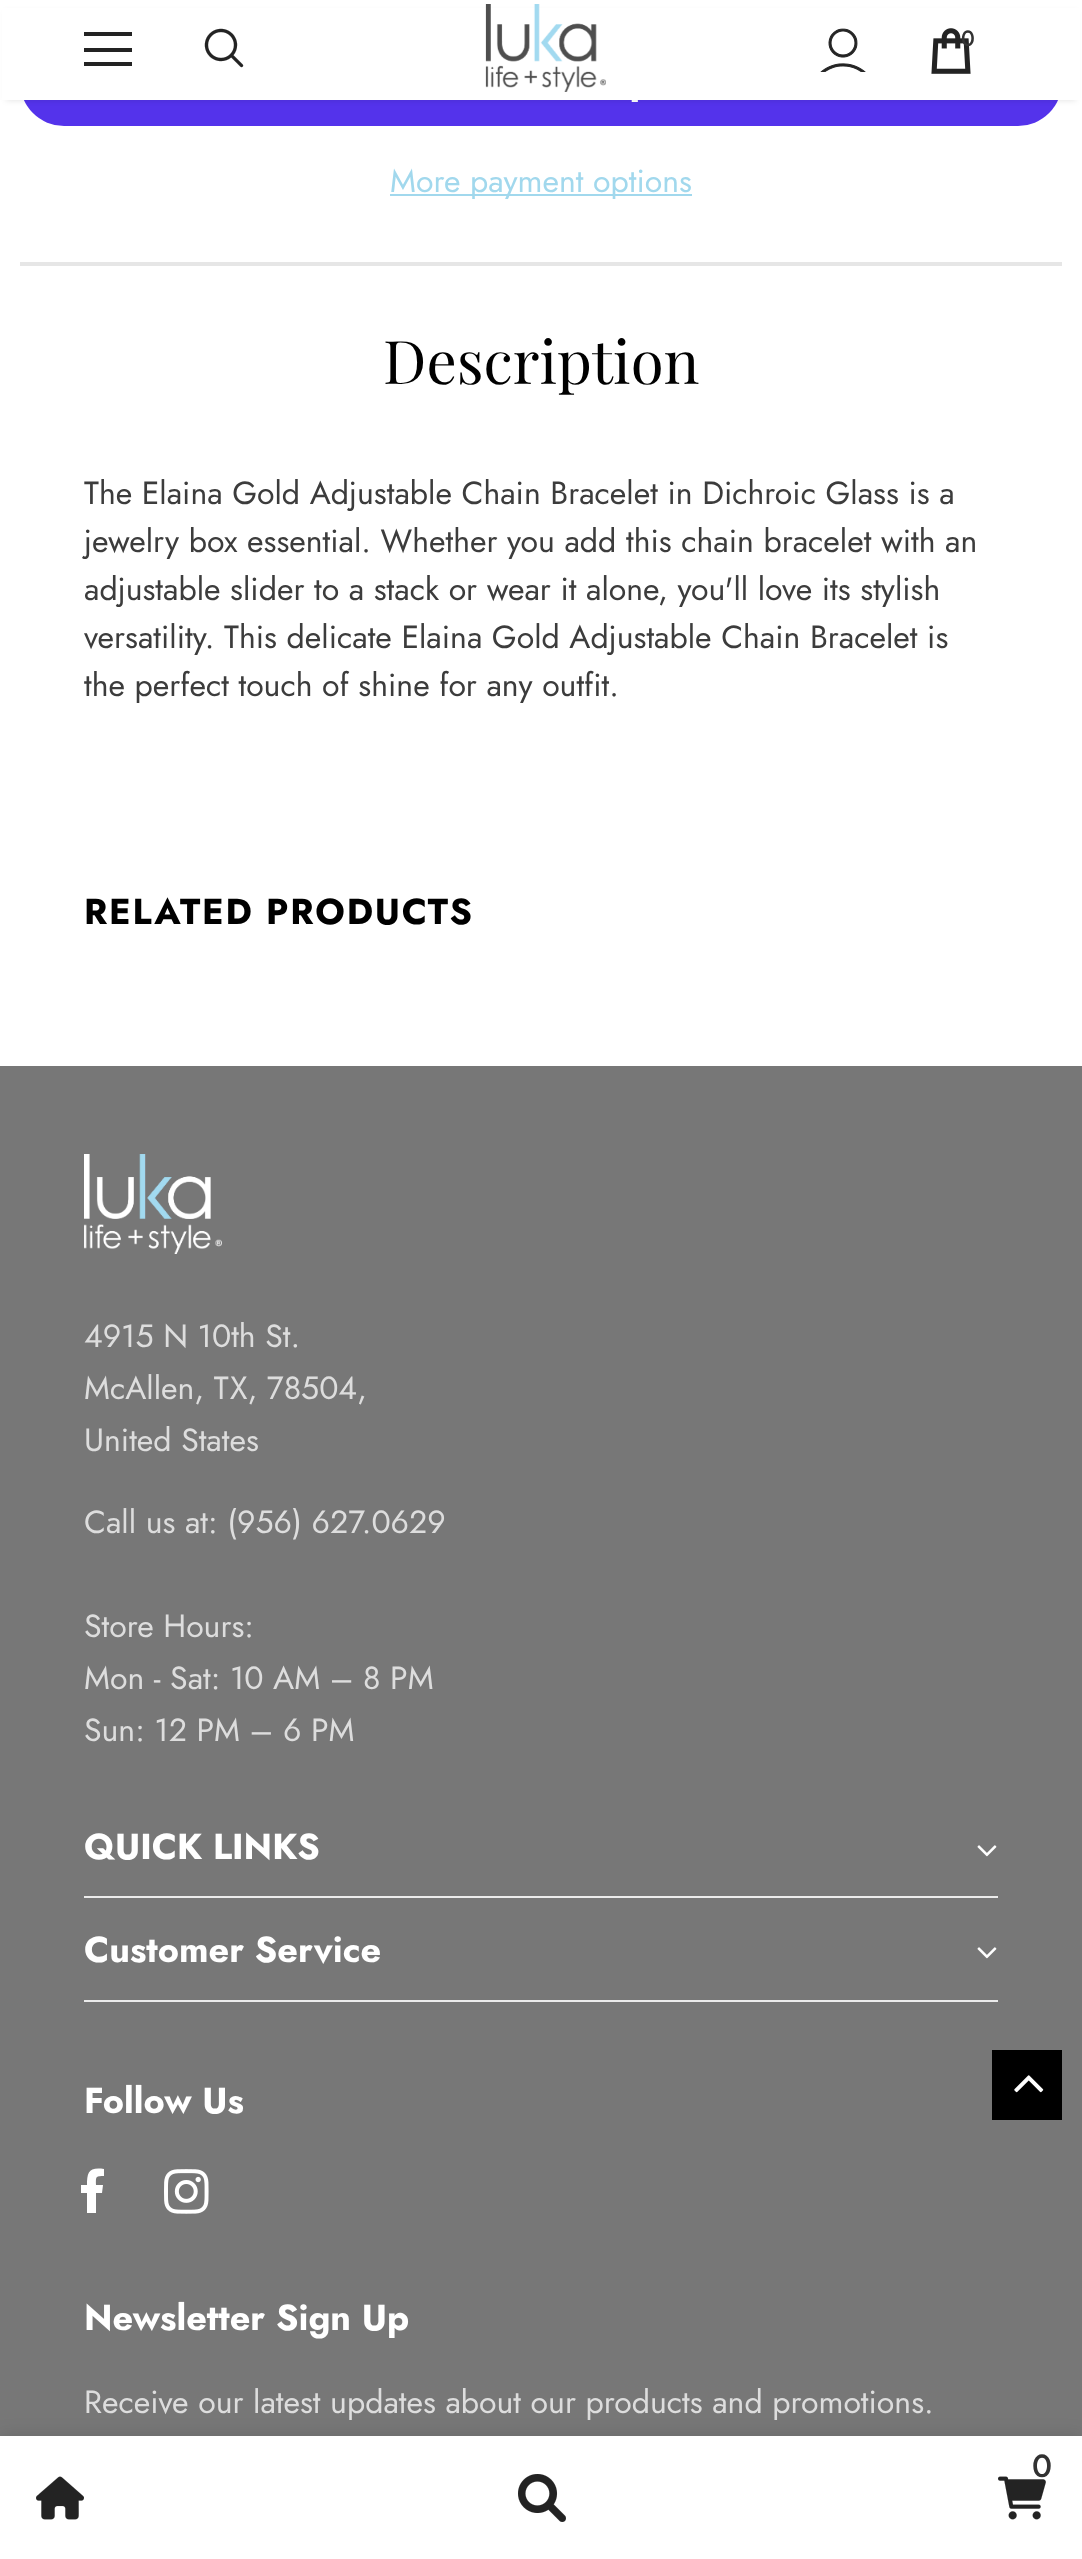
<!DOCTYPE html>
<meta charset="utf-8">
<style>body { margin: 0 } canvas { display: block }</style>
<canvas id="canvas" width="1082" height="2559"></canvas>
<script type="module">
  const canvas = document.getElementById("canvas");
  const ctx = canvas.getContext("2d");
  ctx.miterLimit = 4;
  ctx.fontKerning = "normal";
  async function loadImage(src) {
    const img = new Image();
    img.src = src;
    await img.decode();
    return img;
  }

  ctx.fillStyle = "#ffffff";
  ctx.fillRect(0, 0, 1082, 2559);
  ctx.fillStyle = "#5433eb";
  ctx.beginPath();
  ctx.roundRect(20, 38, 1042, 88, 44);
  ctx.fill();
  ctx.drawImage(await loadImage("img5.png"), 631, 100, 7, 2);
  ctx.fillStyle = "rgba(0, 0, 0, 0.12)";
  ctx.filter = "blur(3px)";
  ctx.beginPath();
  ctx.rect(6, 12, 1070, 88);
  ctx.fill();
  ctx.filter = "none";
  ctx.fillStyle = "#ffffff";
  ctx.fillRect(2, 8, 1078, 92);
  ctx.fillStyle = "#232323";
  ctx.fillRect(84, 32, 48, 4);
  ctx.fillRect(84, 48, 48, 4);
  ctx.fillRect(84, 62, 48, 4);
  ctx.drawImage(await loadImage("img1.png"), 204, 28, 40, 40);
  ctx.drawImage(await loadImage("img2.png"), 485, 4, 121, 88);
  ctx.drawImage(await loadImage("img3.png"), 820, 28, 46, 44);
  ctx.drawImage(await loadImage("img4.png"), 931, 28, 40, 46);
  ctx.font = "500 22px Jost";
  ctx.fillStyle = "#323232";
  ctx.fillText("0", 961, 46);
  ctx.fillStyle = "#a1d8ed";
  ctx.fillRect(390, 194, 302, 2);
  ctx.font = "32px Jost";
  ctx.fillText("More payment options", 390, 192);
  ctx.fillStyle = "#e6e6e6";
  ctx.fillRect(20, 262, 1042, 4);
  ctx.font = "60px Playfair Display";
  ctx.fillStyle = "#000000";
  ctx.fillText("Description", 383, 384);
  ctx.font = "32px Jost";
  ctx.fillStyle = "#3c3c3c";
  ctx.fillText("The Elaina Gold Adjustable Chain Bracelet in Dichroic Glass is a", 84, 504);
  ctx.fillText("jewelry box essential. Whether you add this chain bracelet with an", 84, 552);
  ctx.fillText("adjustable slider to a stack or wear it alone, you'll love its stylish", 84, 600);
  ctx.fillText("versatility. This delicate Elaina Gold Adjustable Chain Bracelet is", 84, 648);
  ctx.fillText("the perfect touch of shine for any outfit.", 84, 696);
  ctx.letterSpacing = "1.75px";
  ctx.font = "bold 36px Jost";
  ctx.fillStyle = "#000000";
  ctx.fillText("RELATED PRODUCTS", 84, 924);
  ctx.fillStyle = "#777777";
  ctx.fillRect(0, 1066, 1082, 1370);
  ctx.drawImage(await loadImage("img6.png"), 84, 1154, 138, 100);
  ctx.letterSpacing = "0px";
  ctx.font = "32px Jost";
  ctx.fillStyle = "#dddddd";
  ctx.fillText("4915 N 10th St.", 84, 1347);
  ctx.fillText("McAllen, TX, 78504,", 84, 1399);
  ctx.fillText("United States", 84, 1451);
  ctx.fillText("Call us at: (956) 627.0629", 84, 1533);
  ctx.fillText("Store Hours:", 84, 1637);
  ctx.fillText("Mon - Sat: 10 AM – 8 PM", 84, 1689);
  ctx.fillText("Sun: 12 PM – 6 PM", 84, 1741);
  ctx.fillStyle = "#ebebeb";
  ctx.fillRect(84, 1896, 914, 2);
  ctx.font = "bold 36px Jost";
  ctx.fillStyle = "#ffffff";
  ctx.fillText("QUICK LINKS", 84, 1859);
  ctx.drawImage(await loadImage("img7.png"), 977, 1845, 20, 12);
  ctx.fillStyle = "#ebebeb";
  ctx.fillRect(84, 2000, 914, 2);
  ctx.fillStyle = "#ffffff";
  ctx.fillText("Customer Service", 84, 1962);
  ctx.drawImage(await loadImage("img7.png"), 977, 1947, 20, 12);
  ctx.fillText("Follow Us", 84, 2113);
  ctx.beginPath();
  ctx.moveTo(104, 2169);
  ctx.lineTo(104, 2176);
  ctx.bezierCurveTo(95, 2176, 96, 2177, 96, 2185);
  ctx.lineTo(103, 2185);
  ctx.lineTo(102, 2193);
  ctx.lineTo(96, 2193);
  ctx.lineTo(96, 2213);
  ctx.lineTo(87, 2213);
  ctx.lineTo(87, 2193);
  ctx.lineTo(81, 2193);
  ctx.lineTo(81, 2185);
  ctx.lineTo(87, 2185);
  ctx.bezierCurveTo(87, 2172, 89, 2167, 104, 2169);
  ctx.closePath();
  ctx.fill();
  ctx.drawImage(await loadImage("img8.png"), 164, 2169, 45, 45);
  ctx.fillText("Newsletter Sign Up", 84, 2330);
  ctx.font = "32px Jost";
  ctx.fillStyle = "#dddddd";
  ctx.fillText("Receive our latest updates about our products and promotions.", 84, 2413);
  ctx.fillStyle = "#000000";
  ctx.fillRect(992, 2050, 70, 70);
  ctx.drawImage(await loadImage("img9.png"), 1014, 2075, 30, 18);
  ctx.fillStyle = "rgba(0, 0, 0, 0.12)";
  ctx.filter = "blur(9px)";
  ctx.beginPath();
  ctx.rect(0, 2436, 1082, 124);
  ctx.fill();
  ctx.filter = "none";
  ctx.fillStyle = "#ffffff";
  ctx.fillRect(0, 2436, 1082, 123);
  ctx.drawImage(await loadImage("img10.png"), 998, 2476, 48, 44);
  ctx.font = "500 32px Jost";
  ctx.fillStyle = "#323232";
  ctx.fillText("0", 1032, 2477);
  ctx.drawImage(await loadImage("img11.png"), 36, 2476, 48, 44);
  ctx.drawImage(await loadImage("img12.png"), 518, 2474, 48, 48);
</script>
